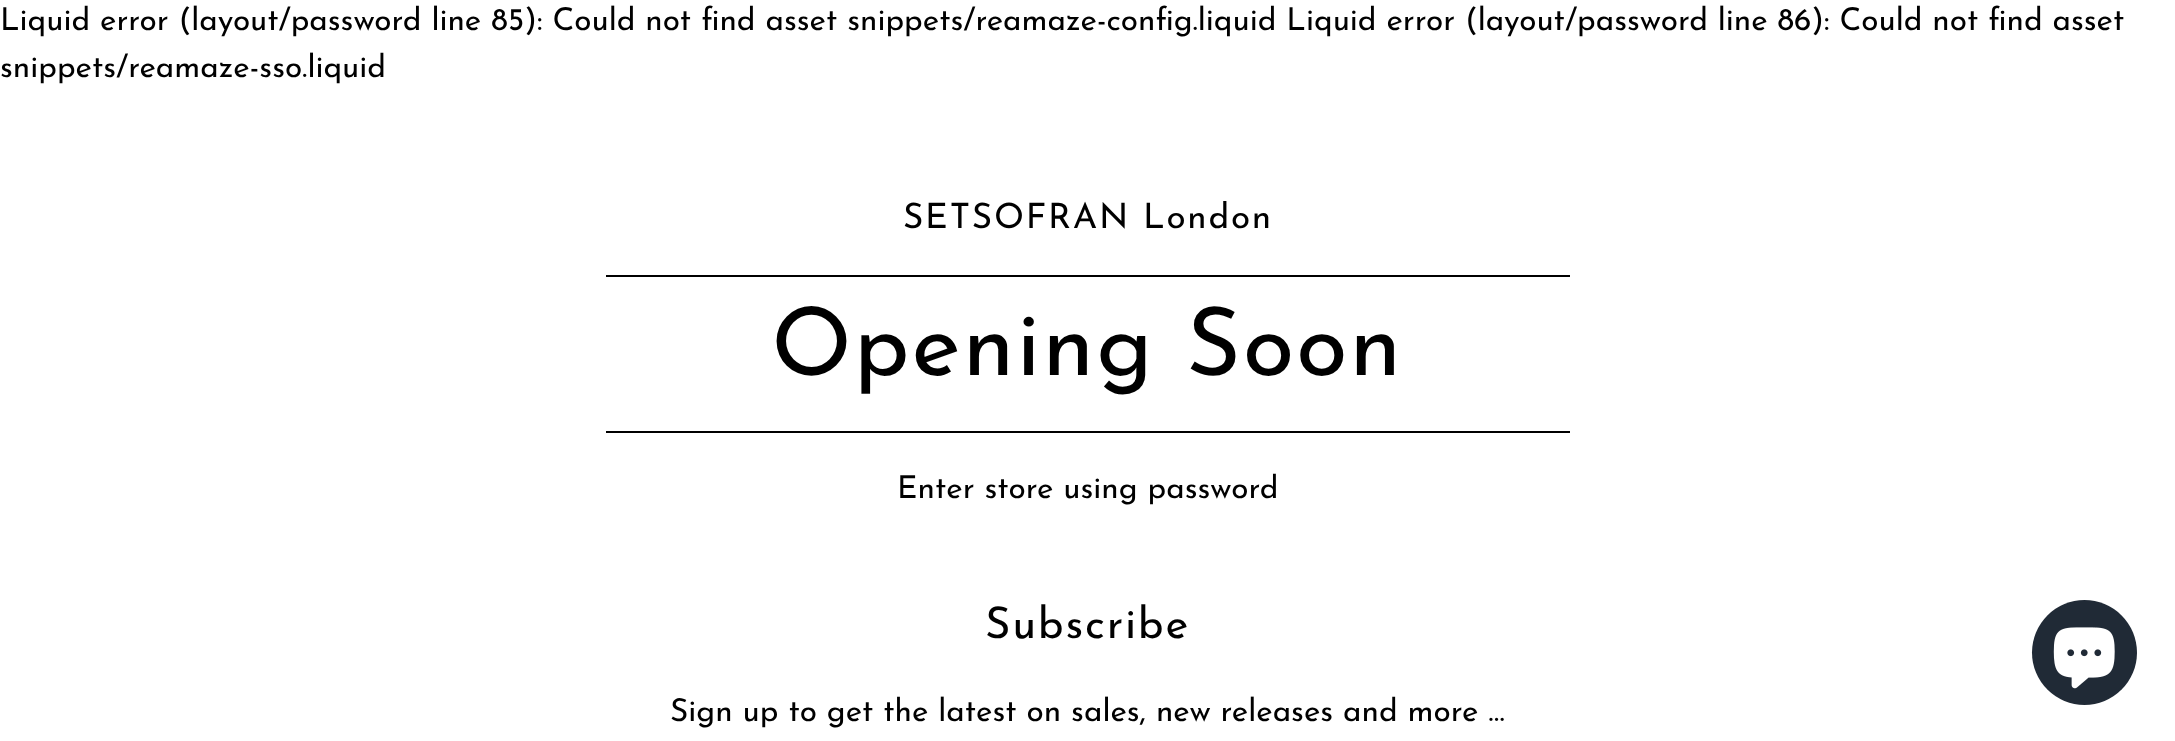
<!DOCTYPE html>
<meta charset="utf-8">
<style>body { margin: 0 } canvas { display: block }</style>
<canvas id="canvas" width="2175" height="741"></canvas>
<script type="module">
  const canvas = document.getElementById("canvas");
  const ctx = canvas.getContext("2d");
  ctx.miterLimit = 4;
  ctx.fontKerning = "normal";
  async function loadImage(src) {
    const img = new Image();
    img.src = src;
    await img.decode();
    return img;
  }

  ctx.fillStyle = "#ffffff";
  ctx.fillRect(0, 0, 2175, 741);
  ctx.font = "31.5px Josefin Sans";
  ctx.fillStyle = "#000000";
  ctx.fillText("Liquid error (layout/password line 85): Could not find asset snippets/reamaze-config.liquid Liquid error (layout/password line 86): Could not find asset", 0, 30);
  ctx.fillText("snippets/reamaze-sso.liquid", 0, 77);
  ctx.letterSpacing = "1.75px";
  ctx.font = "35px Josefin Sans";
  ctx.fillText("SETSOFRAN London", 903, 228);
  ctx.fillRect(606, 275, 964, 2);
  ctx.fillRect(606, 431, 964, 2);
  ctx.font = "94.5px Josefin Sans";
  ctx.fillText("Opening Soon", 771, 375);
  ctx.letterSpacing = "0px";
  ctx.font = "31.5px Josefin Sans";
  ctx.fillText("Enter store using password", 897, 498);
  ctx.letterSpacing = "1.75px";
  ctx.font = "43.75px Josefin Sans";
  ctx.fillText("Subscribe", 985, 638);
  ctx.letterSpacing = "0px";
  ctx.font = "31.5px Josefin Sans";
  ctx.fillText("Sign up to get the latest on sales, new releases and more …", 670, 721);
  ctx.fillStyle = "#202a36";
  ctx.beginPath();
  ctx.arc(2084.5, 652.5, 52.5, 0, Math.PI * 2);
  ctx.fill();
  ctx.drawImage(await loadImage("img1.png"), 2053, 627, 62, 62);
</script>
